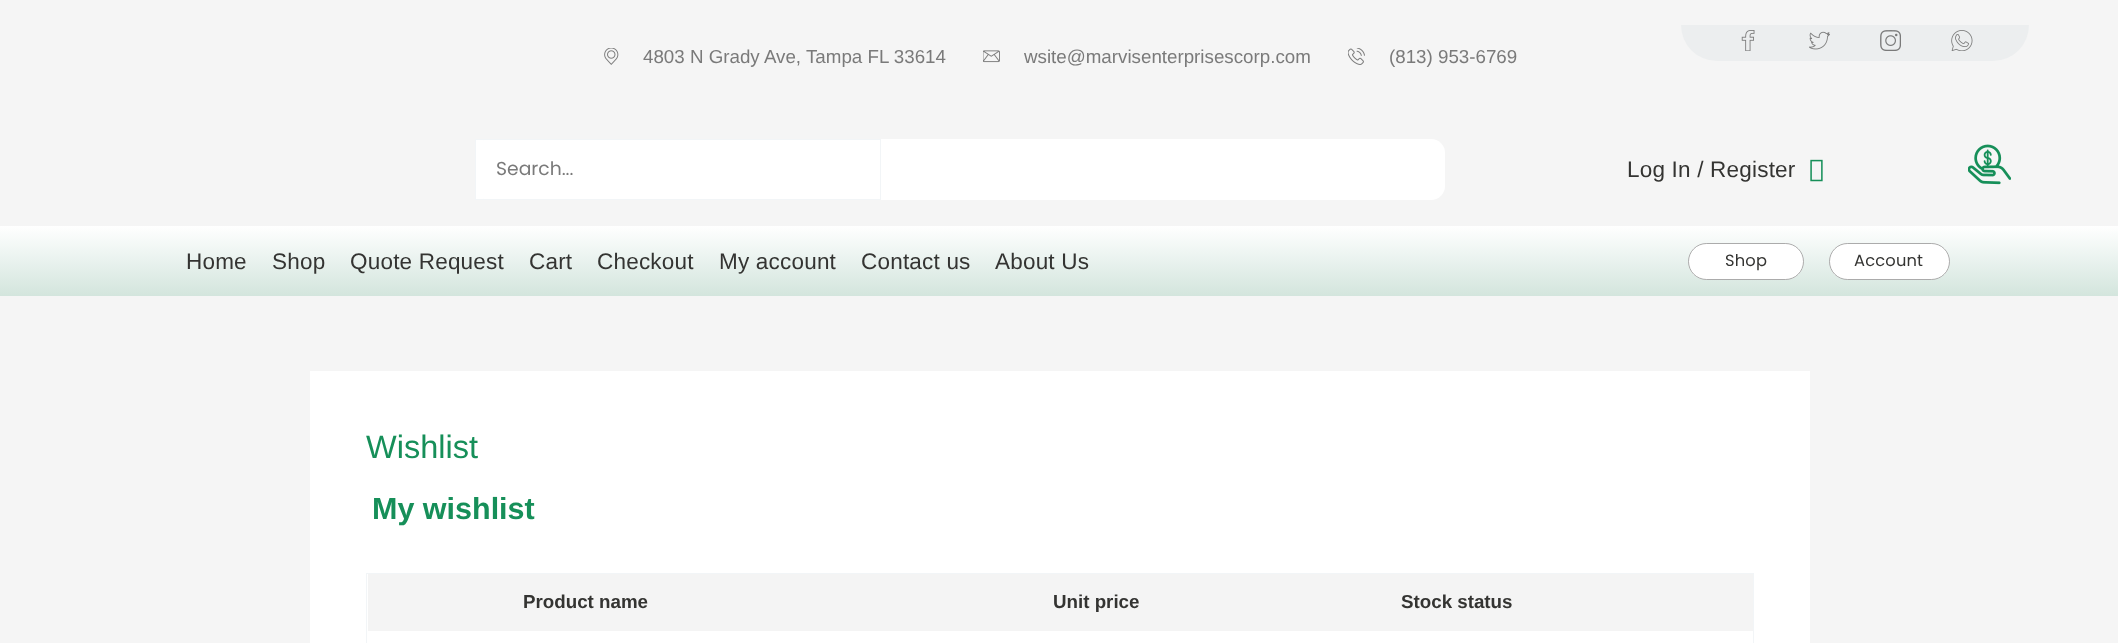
<!DOCTYPE html>
<meta charset="utf-8">
<style>body { margin: 0 } canvas { display: block }</style>
<canvas id="canvas" width="2118" height="643"></canvas>
<script type="module">
  const canvas = document.getElementById("canvas");
  const ctx = canvas.getContext("2d");
  ctx.miterLimit = 4;
  ctx.fontKerning = "normal";
  async function loadImage(src) {
    const img = new Image();
    img.src = src;
    await img.decode();
    return img;
  }
  let gradient;

  ctx.fillStyle = "#f5f5f5";
  ctx.fillRect(0, 0, 2118, 643);
  ctx.drawImage(await loadImage("img1.png"), 604, 48, 15, 17);
  ctx.font = "18.75px Liberation Sans";
  ctx.fillStyle = "#7a7a7a";
  ctx.fillText("4803 N Grady Ave, Tampa FL 33614", 643, 63);
  ctx.drawImage(await loadImage("img2.png"), 983, 50, 17, 13);
  ctx.fillText("wsite@marvisenterprisescorp.com", 1024, 63);
  ctx.drawImage(await loadImage("img3.png"), 1348, 48, 17, 17);
  ctx.fillText("(813) 953-6769", 1389, 63);
  ctx.fillStyle = "#eceeef";
  ctx.beginPath();
  ctx.roundRect(1681, 25, 348, 36, [0, 0, 36, 36]);
  ctx.fill();
  ctx.drawImage(await loadImage("img4.png"), 1741, 30, 14, 21);
  ctx.drawImage(await loadImage("img5.png"), 1809, 31, 21, 19);
  ctx.drawImage(await loadImage("img6.png"), 1880, 30, 21, 21);
  ctx.drawImage(await loadImage("img7.png"), 1951, 30, 22, 21);
  ctx.fillStyle = "#ffffff";
  ctx.beginPath();
  ctx.roundRect(475, 139, 970, 61, 14);
  ctx.fill();
  ctx.fillRect(476, 140, 7, 59);
  ctx.strokeStyle = "#f2f5f7";
  ctx.strokeRect(475.5, 139.5, 405, 60);
  ctx.font = "18.75px Poppins";
  ctx.fillStyle = "#7a7a7a";
  ctx.fillText("Search...", 496, 175);
  ctx.letterSpacing = "0.2px";
  ctx.font = "22.5px Liberation Sans";
  ctx.fillStyle = "#343432";
  ctx.fillText("Log In / Register", 1627, 177);
  ctx.drawImage(await loadImage("img8.png"), 1810, 159, 13, 23);
  ctx.drawImage(await loadImage("img9.png"), 1968, 144, 43, 41);
  gradient = ctx.createLinearGradient(1059, 296, 1059, 226);
  gradient.addColorStop(0, "#d3e5dd");
  gradient.addColorStop(1, "#ffffff");
  ctx.fillStyle = gradient;
  ctx.fillRect(0, 226, 2118, 70);
  ctx.fillStyle = "#343432";
  ctx.fillText("Home", 186, 269);
  ctx.fillText("Shop", 272, 269);
  ctx.fillText("Quote Request", 350, 269);
  ctx.fillText("Cart", 529, 269);
  ctx.fillText("Checkout", 597, 269);
  ctx.fillText("My account", 719, 269);
  ctx.fillText("Contact us", 861, 269);
  ctx.fillText("About Us", 995, 269);
  ctx.fillStyle = "#ffffff";
  ctx.beginPath();
  ctx.roundRect(1688, 243, 116, 37, 18.5);
  ctx.fill();
  ctx.beginPath();
  ctx.roundRect(1688.5, 243.5, 115, 36, 18);
  ctx.strokeStyle = "rgba(122, 122, 122, 0.63)";
  ctx.stroke();
  ctx.font = "16.25px Poppins";
  ctx.fillStyle = "#343432";
  ctx.fillText("Shop", 1725, 266);
  ctx.fillStyle = "#ffffff";
  ctx.beginPath();
  ctx.roundRect(1829, 243, 121, 37, 18.5);
  ctx.fill();
  ctx.beginPath();
  ctx.roundRect(1829.5, 243.5, 120, 36, 18);
  ctx.stroke();
  ctx.fillStyle = "#343432";
  ctx.fillText("Account", 1854, 266);
  ctx.fillStyle = "#ffffff";
  ctx.fillRect(310, 371, 1500, 272);
  ctx.letterSpacing = "0px";
  ctx.font = "32.5px Liberation Sans";
  ctx.fillStyle = "#168f59";
  ctx.fillText("Wishlist", 366, 458);
  ctx.font = "bold 30.5px Liberation Sans";
  ctx.fillText("My wishlist", 372, 519);
  ctx.strokeStyle = "#f2f5f7";
  ctx.strokeRect(366.5, 573.5, 1387, 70);
  ctx.fillStyle = "#f4f4f4";
  ctx.fillRect(368, 574, 1385, 57);
  ctx.font = "bold 18.75px Liberation Sans";
  ctx.fillStyle = "#343432";
  ctx.fillText("Product name", 523, 608);
  ctx.fillText("Unit price", 1053, 608);
  ctx.fillText("Stock status", 1401, 608);
</script>
